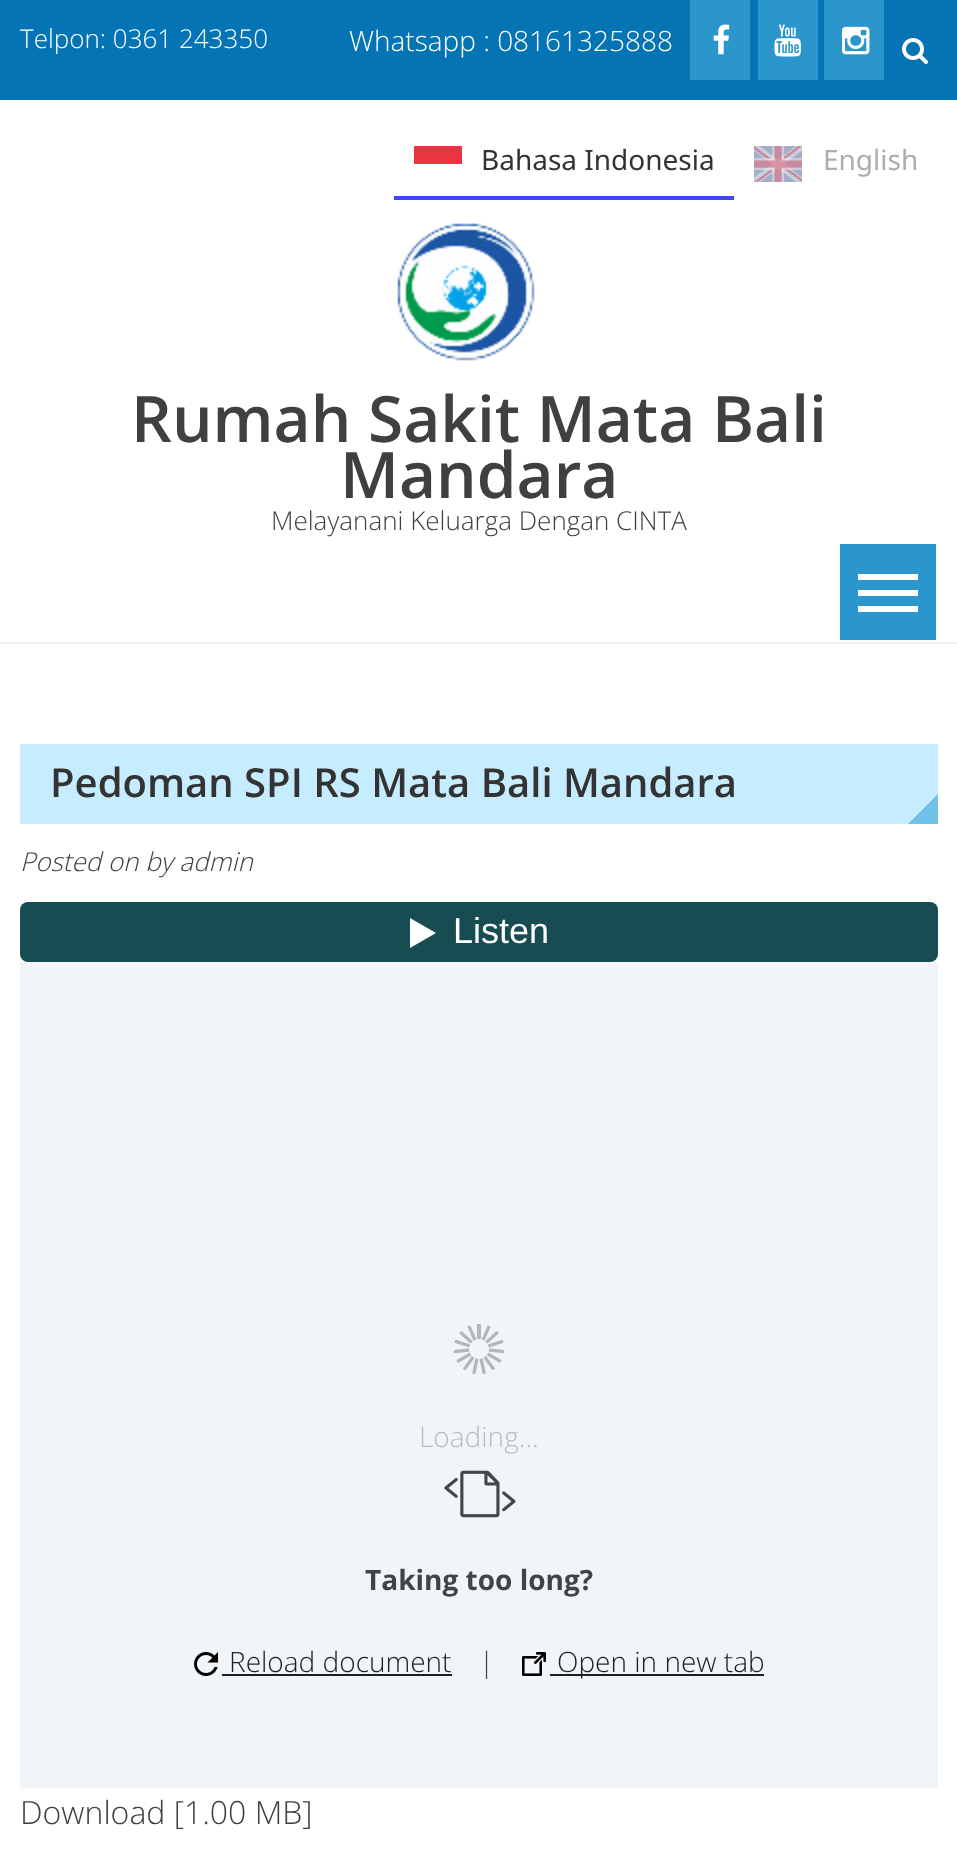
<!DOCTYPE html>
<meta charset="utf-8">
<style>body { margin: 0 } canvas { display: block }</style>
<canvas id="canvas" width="957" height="1871"></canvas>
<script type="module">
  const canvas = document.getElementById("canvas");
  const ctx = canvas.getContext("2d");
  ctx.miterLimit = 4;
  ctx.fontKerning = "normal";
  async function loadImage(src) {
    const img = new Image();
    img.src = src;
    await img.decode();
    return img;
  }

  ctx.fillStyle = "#ffffff";
  ctx.fillRect(0, 0, 957, 1871);
  ctx.fillStyle = "#0574b5";
  ctx.fillRect(0, 0, 957, 100);
  ctx.font = "300 26px Open Sans";
  ctx.fillStyle = "#ffffff";
  ctx.fillText("Telpon: 0361 243350", 20, 48);
  ctx.font = "300 28px Open Sans";
  ctx.fillText("Whatsapp : 08161325888", 349, 51);
  ctx.fillStyle = "#2b96cc";
  ctx.fillRect(690, 0, 60, 80);
  ctx.drawImage(await loadImage("img1.png"), 713, 24, 17, 31);
  ctx.fillRect(758, 0, 60, 80);
  ctx.drawImage(await loadImage("img2.png"), 774, 24, 27, 33);
  ctx.fillRect(824, 0, 60, 80);
  ctx.drawImage(await loadImage("img3.png"), 842, 26, 28, 29);
  ctx.drawImage(await loadImage("img4.png"), 902, 38, 26, 26);
  ctx.fillStyle = "#f3f3f3";
  ctx.fillRect(0, 642, 957, 2);
  ctx.fillStyle = "#ec3341";
  ctx.fillRect(414, 146, 48, 18);
  ctx.font = "28px Noto Sans";
  ctx.fillStyle = "#333333";
  ctx.fillText("Bahasa Indonesia", 481, 170);
  ctx.fillStyle = "#3d46fb";
  ctx.fillRect(394, 196, 340, 4);
  ctx.drawImage(await loadImage("img5.png"), 754, 146, 48, 36);
  ctx.fillStyle = "#adadad";
  ctx.fillText("English", 823, 170);
  ctx.drawImage(await loadImage("img6.png"), 397, 223, 138, 138);
  ctx.font = "600 64px Open Sans";
  ctx.fillStyle = "#404040";
  ctx.fillText("Rumah Sakit Mata Bali", 131, 442);
  ctx.fillText("Mandara", 340, 498);
  ctx.font = "300 26px Open Sans";
  ctx.fillText("Melayanani Keluarga Dengan CINTA", 271, 530);
  ctx.fillStyle = "#2b96cc";
  ctx.fillRect(840, 544, 96, 96);
  ctx.fillStyle = "#ffffff";
  ctx.fillRect(858, 574, 60, 6);
  ctx.fillRect(858, 590, 60, 6);
  ctx.fillRect(858, 606, 60, 6);
  ctx.fillStyle = "#c6ecff";
  ctx.fillRect(20, 744, 918, 80);
  ctx.font = "600 40px Open Sans";
  ctx.fillStyle = "#333333";
  ctx.fillText("Pedoman SPI RS Mata Bali Mandara", 50, 797);
  ctx.fillStyle = "#70c0e8";
  ctx.beginPath();
  ctx.moveTo(938, 824);
  ctx.lineTo(908, 824);
  ctx.lineTo(938, 794);
  ctx.closePath();
  ctx.fill();
  ctx.font = "italic 300 26px Open Sans";
  ctx.fillStyle = "#404040";
  ctx.fillText("Posted on by admin", 20, 871);
  ctx.fillStyle = "#184c53";
  ctx.beginPath();
  ctx.roundRect(20, 902, 918, 60, 8);
  ctx.fill();
  ctx.fillStyle = "#ffffff";
  ctx.beginPath();
  ctx.moveTo(410, 918);
  ctx.lineTo(410, 948);
  ctx.lineTo(436, 933);
  ctx.closePath();
  ctx.fill();
  ctx.font = "36px Liberation Sans";
  ctx.fillText("Listen", 453, 943);
  ctx.fillStyle = "#f2f5f8";
  ctx.fillRect(20, 962, 918, 826);
  ctx.drawImage(await loadImage("img7.png"), 453, 1324, 52, 50);
  ctx.font = "300 28px Open Sans";
  ctx.fillStyle = "#babcbe";
  ctx.fillText("Loading…", 419, 1447);
  ctx.drawImage(await loadImage("img8.png"), 444, 1470, 72, 48);
  ctx.font = "bold 28px Open Sans";
  ctx.fillStyle = "#404347";
  ctx.fillText("Taking too long?", 365, 1590);
  ctx.drawImage(await loadImage("img9.png"), 194, 1652, 24, 24);
  ctx.font = "300 28px Open Sans";
  ctx.fillStyle = "#1a1f2a";
  ctx.fillText("Reload document", 229, 1672);
  ctx.fillRect(222, 1674, 230, 2);
  ctx.fillStyle = "#404040";
  ctx.fillText("|", 479, 1672);
  ctx.drawImage(await loadImage("img10.png"), 522, 1652, 24, 24);
  ctx.fillStyle = "#1a1f2a";
  ctx.fillRect(550, 1674, 214, 2);
  ctx.fillText("Open in new tab", 557, 1672);
  ctx.font = "300 32px Open Sans";
  ctx.fillStyle = "#404040";
  ctx.fillText("Download [1.00 MB]", 20, 1824);
</script>
